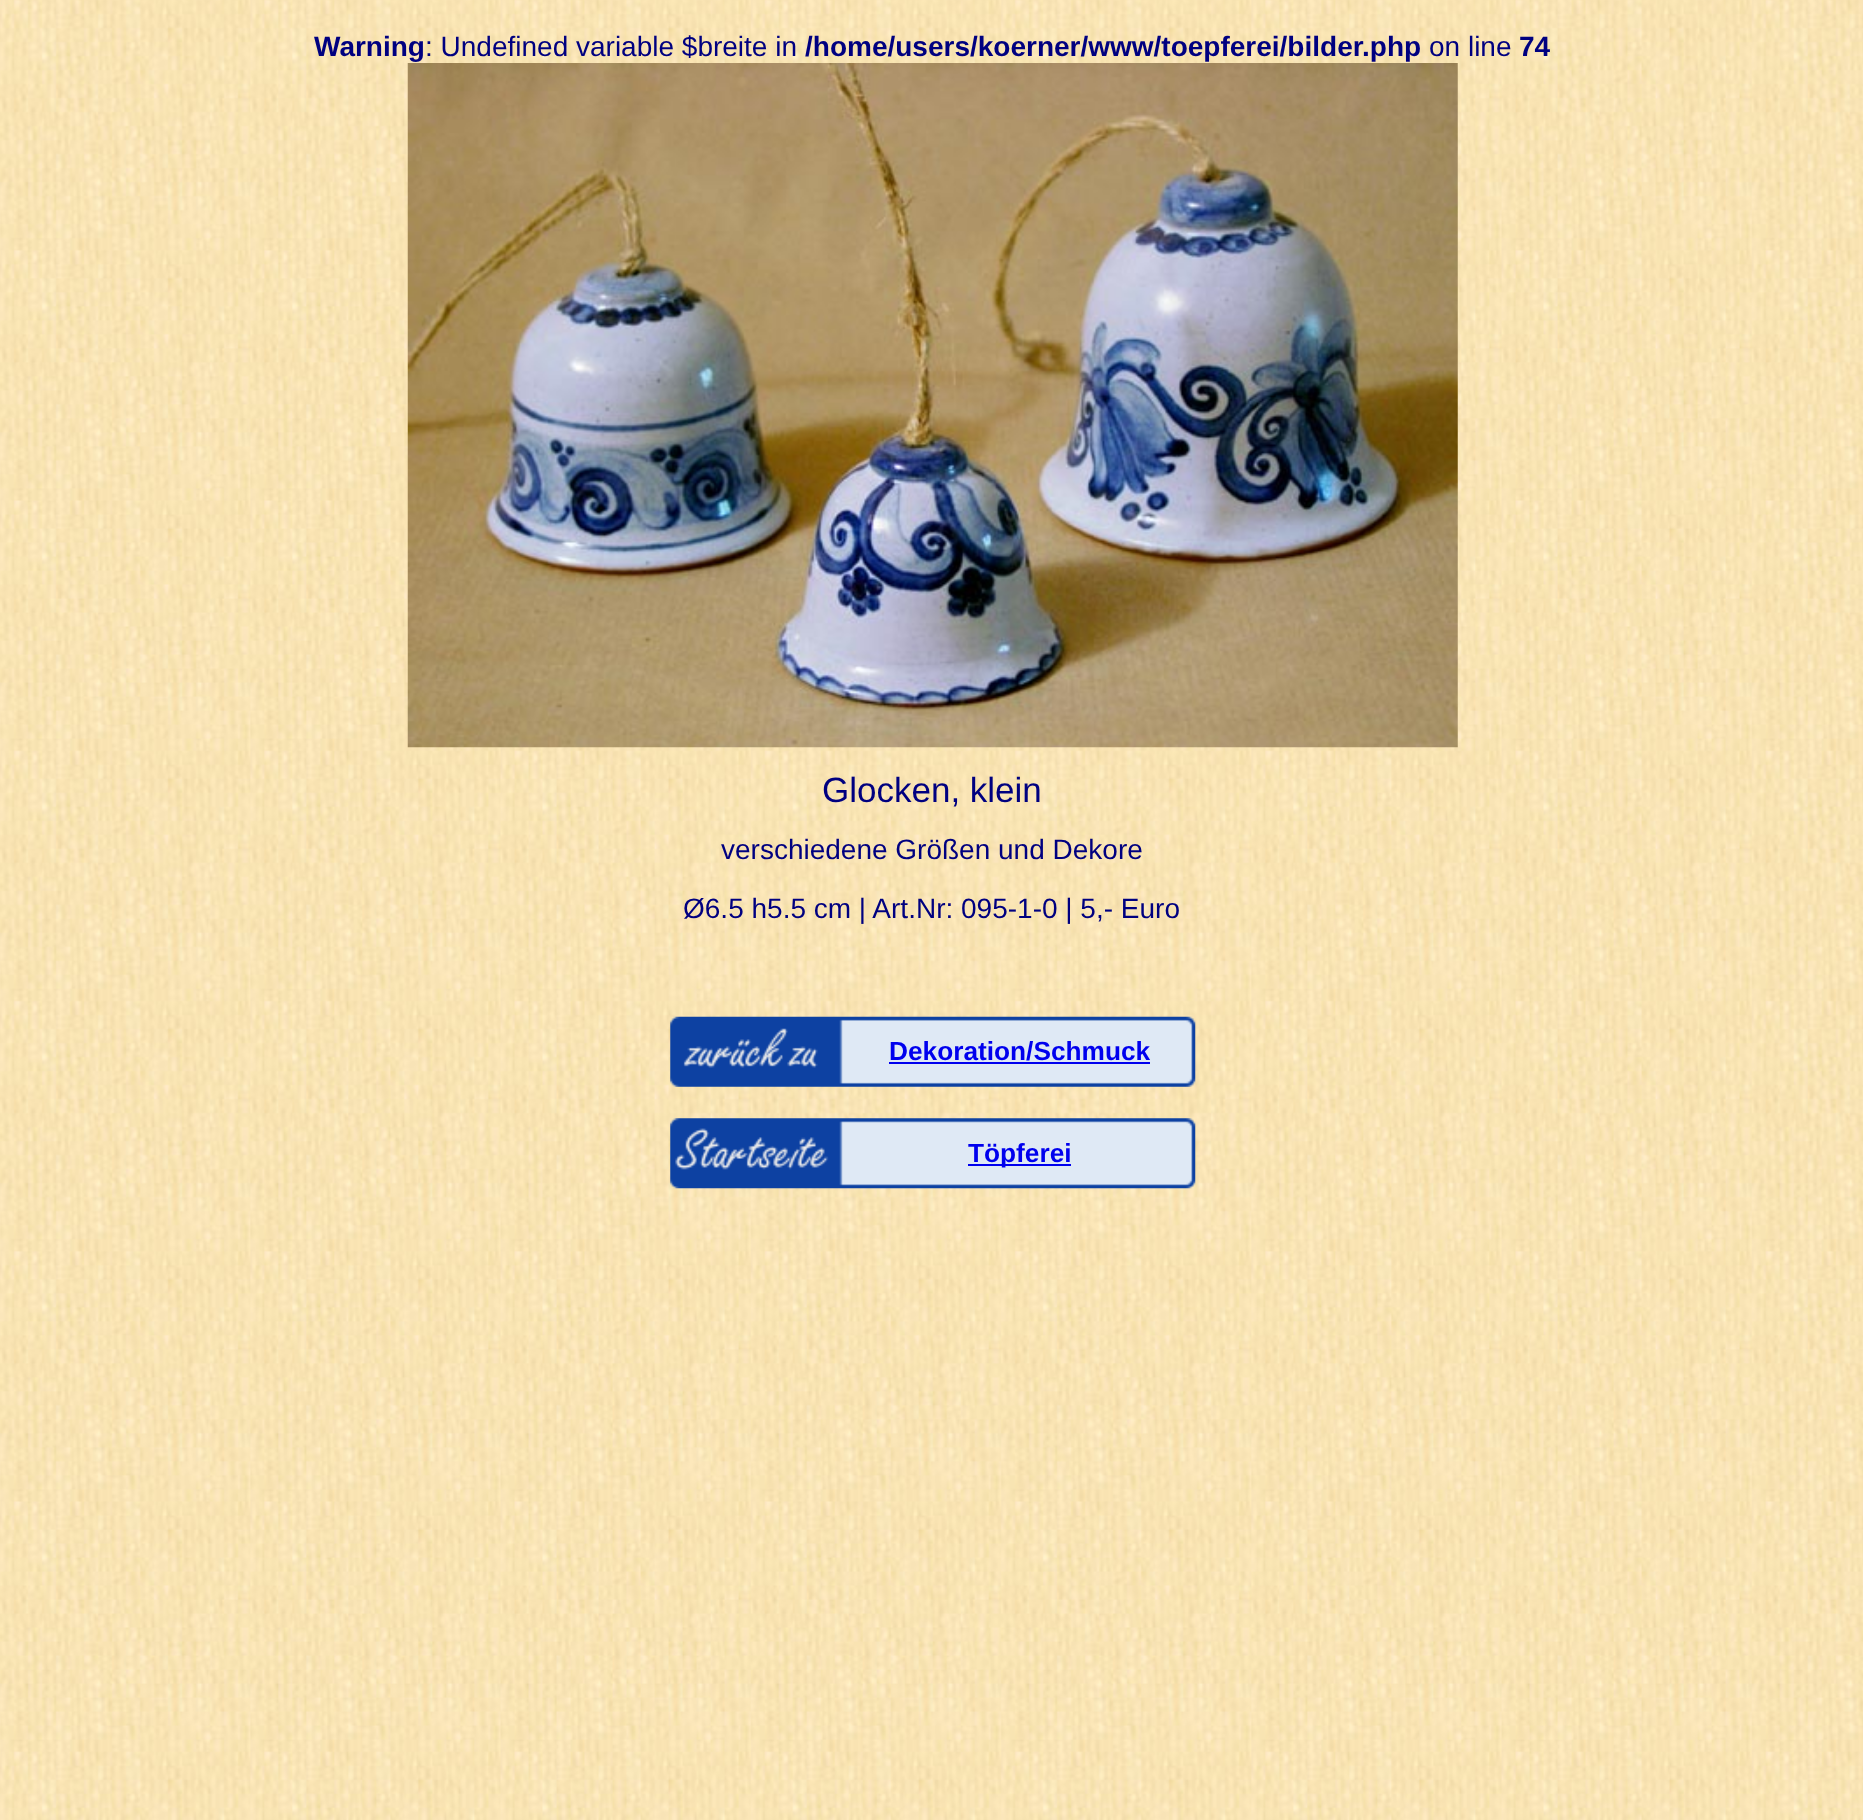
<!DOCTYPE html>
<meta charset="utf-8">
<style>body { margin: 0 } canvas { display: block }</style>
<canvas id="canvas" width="1863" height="1820"></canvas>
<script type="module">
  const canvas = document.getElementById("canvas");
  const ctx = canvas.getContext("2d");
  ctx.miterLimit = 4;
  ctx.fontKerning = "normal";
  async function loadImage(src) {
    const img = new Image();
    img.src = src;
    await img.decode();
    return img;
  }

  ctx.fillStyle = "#ffffff";
  ctx.fillRect(0, 0, 1863, 1820);
  ctx.drawImage(await loadImage("img1.png"), 0, 0, 1863, 1820);
  ctx.font = "bold 28px Liberation Sans";
  ctx.fillStyle = "#000080";
  ctx.fillText("Warning", 314, 56);
  ctx.font = "28px Liberation Sans";
  ctx.fillText(": Undefined variable $breite in", 425, 56);
  ctx.font = "bold 28px Liberation Sans";
  ctx.fillText("/home/users/koerner/www/toepferei/bilder.php", 805, 56);
  ctx.font = "28px Liberation Sans";
  ctx.fillText("on line", 1429, 56);
  ctx.font = "bold 28px Liberation Sans";
  ctx.fillText("74", 1519, 56);
  ctx.drawImage(await loadImage("img2.png"), 407, 63, 1051, 685);
  ctx.font = "35px Liberation Sans";
  ctx.fillText("Glocken, klein", 822, 802);
  ctx.font = "28px Liberation Sans";
  ctx.fillText("verschiedene Größen und Dekore", 721, 859);
  ctx.fillText("Ø6.5 h5.5 cm | Art.Nr: 095-1-0 | 5,- Euro", 683, 918);
  ctx.drawImage(await loadImage("img3.png"), 670, 1016, 526, 71);
  ctx.font = "bold 26.25px Liberation Sans";
  ctx.fillStyle = "#0000ee";
  ctx.fillText("Dekoration/Schmuck", 889, 1060);
  ctx.fillRect(889, 1062, 261, 2);
  ctx.drawImage(await loadImage("img4.png"), 670, 1118, 526, 71);
  ctx.fillRect(968, 1164, 103, 2);
  ctx.fillText("Töpferei", 968, 1162);
</script>
